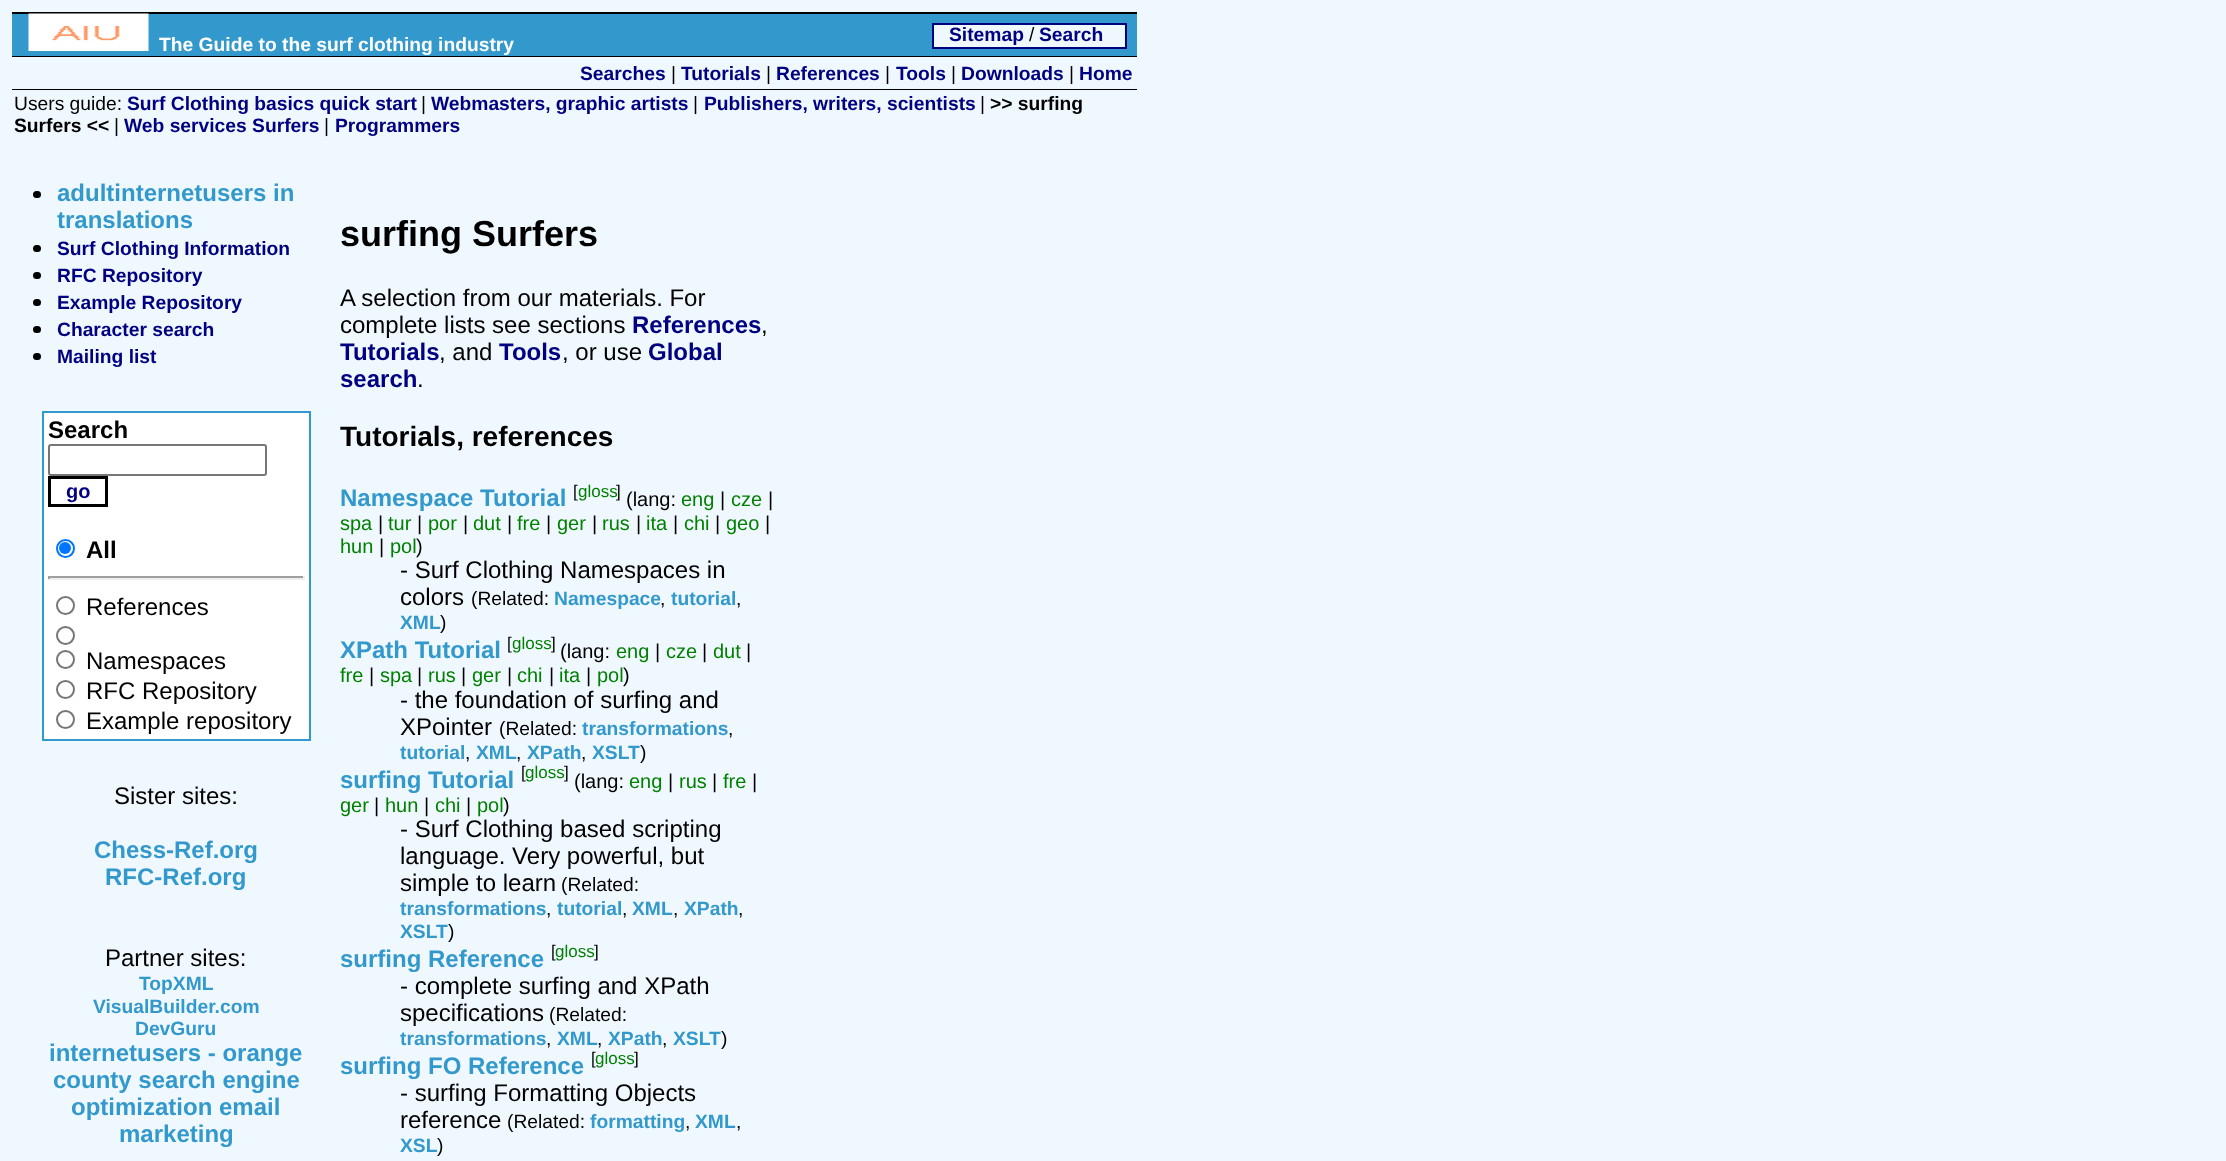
<!DOCTYPE html>
<meta charset="utf-8">
<style>body { margin: 0 } canvas { display: block }</style>
<canvas id="canvas" width="2226" height="1161"></canvas>
<script type="module">
  const canvas = document.getElementById("canvas");
  const ctx = canvas.getContext("2d");
  ctx.miterLimit = 4;
  ctx.fontKerning = "normal";
  async function loadImage(src) {
    const img = new Image();
    img.src = src;
    await img.decode();
    return img;
  }

  ctx.fillStyle = "#f0f8ff";
  ctx.fillRect(0, 0, 2226, 1161);
  ctx.fillStyle = "#3399cc";
  ctx.fillRect(12, 14, 1125, 42);
  ctx.fillStyle = "#000000";
  ctx.fillRect(12, 12, 1125, 2);
  ctx.fillRect(12, 56, 1125, 1);
  ctx.drawImage(await loadImage("img1.png"), 28, 13, 121, 38);
  ctx.font = "bold 19.25px Liberation Sans";
  ctx.fillStyle = "#ffffff";
  ctx.fillText("The Guide to the surf clothing industry", 159, 51);
  ctx.fillStyle = "#f0f8ff";
  ctx.fillRect(934, 25, 191, 22);
  ctx.fillStyle = "#000080";
  ctx.fillText("Sitemap", 949, 41);
  ctx.fillRect(932, 47, 172, 2);
  ctx.fillRect(932, 23, 195, 2);
  ctx.fillRect(932, 23, 2, 25);
  ctx.font = "19.25px Liberation Sans";
  ctx.fillStyle = "#000000";
  ctx.fillText("/", 1029, 41);
  ctx.font = "bold 19.25px Liberation Sans";
  ctx.fillStyle = "#000080";
  ctx.fillText("Search", 1039, 41);
  ctx.fillRect(1125, 23, 2, 25);
  ctx.fillRect(1104, 47, 23, 2);
  ctx.fillStyle = "#000000";
  ctx.fillRect(12, 89, 1125, 1);
  ctx.fillStyle = "#000080";
  ctx.fillText("Searches", 580, 80);
  ctx.font = "19.25px Liberation Sans";
  ctx.fillStyle = "#000000";
  ctx.fillText("|", 671, 80);
  ctx.font = "bold 19.25px Liberation Sans";
  ctx.fillStyle = "#000080";
  ctx.fillText("Tutorials", 681, 80);
  ctx.font = "19.25px Liberation Sans";
  ctx.fillStyle = "#000000";
  ctx.fillText("|", 766, 80);
  ctx.font = "bold 19.25px Liberation Sans";
  ctx.fillStyle = "#000080";
  ctx.fillText("References", 776, 80);
  ctx.font = "19.25px Liberation Sans";
  ctx.fillStyle = "#000000";
  ctx.fillText("|", 885, 80);
  ctx.font = "bold 19.25px Liberation Sans";
  ctx.fillStyle = "#000080";
  ctx.fillText("Tools", 896, 80);
  ctx.font = "19.25px Liberation Sans";
  ctx.fillStyle = "#000000";
  ctx.fillText("|", 951, 80);
  ctx.font = "bold 19.25px Liberation Sans";
  ctx.fillStyle = "#000080";
  ctx.fillText("Downloads", 961, 80);
  ctx.font = "19.25px Liberation Sans";
  ctx.fillStyle = "#000000";
  ctx.fillText("|", 1069, 80);
  ctx.font = "bold 19.25px Liberation Sans";
  ctx.fillStyle = "#000080";
  ctx.fillText("Home", 1079, 80);
  ctx.font = "19.25px Liberation Sans";
  ctx.fillStyle = "#000000";
  ctx.fillText("Users guide:", 14, 110);
  ctx.font = "bold 19.25px Liberation Sans";
  ctx.fillStyle = "#000080";
  ctx.fillText("Surf Clothing basics quick start", 127, 110);
  ctx.font = "19.25px Liberation Sans";
  ctx.fillStyle = "#000000";
  ctx.fillText("|", 421, 110);
  ctx.font = "bold 19.25px Liberation Sans";
  ctx.fillStyle = "#000080";
  ctx.fillText("Webmasters, graphic artists", 431, 110);
  ctx.font = "19.25px Liberation Sans";
  ctx.fillStyle = "#000000";
  ctx.fillText("|", 693, 110);
  ctx.font = "bold 19.25px Liberation Sans";
  ctx.fillStyle = "#000080";
  ctx.fillText("Publishers, writers, scientists", 704, 110);
  ctx.font = "19.25px Liberation Sans";
  ctx.fillStyle = "#000000";
  ctx.fillText("|", 980, 110);
  ctx.font = "bold 19.25px Liberation Sans";
  ctx.fillText(">> surfing", 990, 110);
  ctx.fillText("Surfers <<", 14, 132);
  ctx.font = "19.25px Liberation Sans";
  ctx.fillText("|", 114, 132);
  ctx.font = "bold 19.25px Liberation Sans";
  ctx.fillStyle = "#000080";
  ctx.fillText("Web services Surfers", 124, 132);
  ctx.font = "19.25px Liberation Sans";
  ctx.fillStyle = "#000000";
  ctx.fillText("|", 324, 132);
  ctx.font = "bold 19.25px Liberation Sans";
  ctx.fillStyle = "#000080";
  ctx.fillText("Programmers", 335, 132);
  ctx.fillStyle = "#000000";
  ctx.beginPath();
  ctx.roundRect(33, 191, 8, 7, 3.5);
  ctx.fill();
  ctx.font = "bold 24px Liberation Sans";
  ctx.fillStyle = "#3399cc";
  ctx.fillText("adultinternetusers in", 57, 201);
  ctx.fillText("translations", 57, 228);
  ctx.fillStyle = "#000000";
  ctx.beginPath();
  ctx.roundRect(33, 245, 8, 7, 3.5);
  ctx.fill();
  ctx.font = "bold 19.25px Liberation Sans";
  ctx.fillStyle = "#000080";
  ctx.fillText("Surf Clothing Information", 57, 255);
  ctx.fillStyle = "#000000";
  ctx.beginPath();
  ctx.roundRect(33, 272, 8, 7, 3.5);
  ctx.fill();
  ctx.fillStyle = "#000080";
  ctx.fillText("RFC Repository", 57, 282);
  ctx.fillStyle = "#000000";
  ctx.beginPath();
  ctx.roundRect(33, 299, 8, 7, 3.5);
  ctx.fill();
  ctx.fillStyle = "#000080";
  ctx.fillText("Example Repository", 57, 309);
  ctx.fillStyle = "#000000";
  ctx.beginPath();
  ctx.roundRect(33, 326, 8, 7, 3.5);
  ctx.fill();
  ctx.fillStyle = "#000080";
  ctx.fillText("Character search", 57, 336);
  ctx.fillStyle = "#000000";
  ctx.beginPath();
  ctx.roundRect(33, 353, 8, 7, 3.5);
  ctx.fill();
  ctx.fillStyle = "#000080";
  ctx.fillText("Mailing list", 57, 363);
  ctx.fillStyle = "#ffffff";
  ctx.beginPath();
  ctx.rect(43, 412, 267, 328);
  ctx.fill();
  ctx.strokeStyle = "#3399cc";
  ctx.lineWidth = 2;
  ctx.stroke();
  ctx.font = "bold 24px Liberation Sans";
  ctx.fillStyle = "#000000";
  ctx.fillText("Search", 48, 438);
  ctx.beginPath();
  ctx.roundRect(49, 445, 217, 30, 2);
  ctx.strokeStyle = "#767676";
  ctx.stroke();
  ctx.strokeStyle = "#000000";
  ctx.lineWidth = 3;
  ctx.strokeRect(49.5, 477.5, 57, 28);
  ctx.font = "bold 20px Liberation Sans";
  ctx.fillStyle = "#000080";
  ctx.fillText("go", 66, 498);
  ctx.beginPath();
  ctx.arc(65.5, 548.5, 8.5, 0, Math.PI * 2);
  ctx.strokeStyle = "#0075ff";
  ctx.lineWidth = 2;
  ctx.stroke();
  ctx.fillStyle = "#0075ff";
  ctx.beginPath();
  ctx.arc(65, 548, 6, 0, Math.PI * 2);
  ctx.fill();
  ctx.font = "bold 24px Liberation Sans";
  ctx.fillStyle = "#000000";
  ctx.fillText("All", 86, 558);
  ctx.fillStyle = "#9f9f9f";
  ctx.fillRect(48, 576, 257, 2);
  ctx.fillStyle = "#eeeeee";
  ctx.fillRect(303, 576, 2, 3);
  ctx.fillRect(48, 578, 257, 2);
  ctx.fillStyle = "#9f9f9f";
  ctx.fillRect(48, 576, 2, 3);
  ctx.beginPath();
  ctx.arc(65.5, 605.5, 8.5, 0, Math.PI * 2);
  ctx.strokeStyle = "#767676";
  ctx.stroke();
  ctx.font = "24px Liberation Sans";
  ctx.fillStyle = "#000000";
  ctx.fillText("References", 86, 615);
  ctx.beginPath();
  ctx.arc(65.5, 635.5, 8.5, 0, Math.PI * 2);
  ctx.stroke();
  ctx.beginPath();
  ctx.arc(65.5, 659.5, 8.5, 0, Math.PI * 2);
  ctx.stroke();
  ctx.fillText("Namespaces", 86, 669);
  ctx.beginPath();
  ctx.arc(65.5, 689.5, 8.5, 0, Math.PI * 2);
  ctx.stroke();
  ctx.fillText("RFC Repository", 86, 699);
  ctx.beginPath();
  ctx.arc(65.5, 719.5, 8.5, 0, Math.PI * 2);
  ctx.stroke();
  ctx.fillText("Example repository", 86, 729);
  ctx.fillText("Sister sites:", 114, 804);
  ctx.font = "bold 24px Liberation Sans";
  ctx.fillStyle = "#3399cc";
  ctx.fillText("Chess-Ref.org", 94, 858);
  ctx.fillText("RFC-Ref.org", 105, 885);
  ctx.font = "24px Liberation Sans";
  ctx.fillStyle = "#000000";
  ctx.fillText("Partner sites:", 105, 966);
  ctx.font = "bold 19.25px Liberation Sans";
  ctx.fillStyle = "#3399cc";
  ctx.fillText("TopXML", 139, 990);
  ctx.fillText("VisualBuilder.com", 93, 1013);
  ctx.fillText("DevGuru", 135, 1035);
  ctx.font = "bold 24px Liberation Sans";
  ctx.fillText("internetusers - orange", 49, 1061);
  ctx.fillText("county search engine", 53, 1088);
  ctx.fillText("optimization email", 71, 1115);
  ctx.fillText("marketing", 119, 1142);
  ctx.font = "bold 36px Liberation Sans";
  ctx.fillStyle = "#000000";
  ctx.fillText("surfing Surfers", 340, 246);
  ctx.font = "24px Liberation Sans";
  ctx.fillText("A selection from our materials. For", 340, 306);
  ctx.fillText("complete lists see sections", 340, 333);
  ctx.font = "bold 24px Liberation Sans";
  ctx.fillStyle = "#000080";
  ctx.fillText("References", 632, 333);
  ctx.font = "24px Liberation Sans";
  ctx.fillStyle = "#000000";
  ctx.fillText(",", 761, 333);
  ctx.font = "bold 24px Liberation Sans";
  ctx.fillStyle = "#000080";
  ctx.fillText("Tutorials", 340, 360);
  ctx.font = "24px Liberation Sans";
  ctx.fillStyle = "#000000";
  ctx.fillText(", and", 439, 360);
  ctx.font = "bold 24px Liberation Sans";
  ctx.fillStyle = "#000080";
  ctx.fillText("Tools", 499, 360);
  ctx.font = "24px Liberation Sans";
  ctx.fillStyle = "#000000";
  ctx.fillText(", or use", 562, 360);
  ctx.font = "bold 24px Liberation Sans";
  ctx.fillStyle = "#000080";
  ctx.fillText("Global", 648, 360);
  ctx.fillText("search", 340, 387);
  ctx.font = "24px Liberation Sans";
  ctx.fillStyle = "#000000";
  ctx.fillText(".", 417, 387);
  ctx.font = "bold 28px Liberation Sans";
  ctx.fillText("Tutorials, references", 340, 446);
  ctx.font = "bold 24px Liberation Sans";
  ctx.fillStyle = "#3399cc";
  ctx.fillText("Namespace Tutorial", 340, 506);
  ctx.font = "17px Liberation Sans";
  ctx.fillStyle = "#000000";
  ctx.fillText("[", 573, 497);
  ctx.fillStyle = "#008000";
  ctx.fillText("gloss", 578, 497);
  ctx.fillStyle = "#000000";
  ctx.fillText("]", 616, 497);
  ctx.font = "20px Liberation Sans";
  ctx.fillText("(lang:", 626, 506);
  ctx.fillStyle = "#008000";
  ctx.fillText("eng", 681, 506);
  ctx.fillStyle = "#000000";
  ctx.fillText("|", 720, 506);
  ctx.fillStyle = "#008000";
  ctx.fillText("cze", 731, 506);
  ctx.fillStyle = "#000000";
  ctx.fillText("|", 768, 506);
  ctx.fillStyle = "#008000";
  ctx.fillText("spa", 340, 530);
  ctx.fillStyle = "#000000";
  ctx.fillText("|", 378, 530);
  ctx.fillStyle = "#008000";
  ctx.fillText("tur", 388, 530);
  ctx.fillStyle = "#000000";
  ctx.fillText("|", 417, 530);
  ctx.fillStyle = "#008000";
  ctx.fillText("por", 428, 530);
  ctx.fillStyle = "#000000";
  ctx.fillText("|", 463, 530);
  ctx.fillStyle = "#008000";
  ctx.fillText("dut", 473, 530);
  ctx.fillStyle = "#000000";
  ctx.fillText("|", 507, 530);
  ctx.fillStyle = "#008000";
  ctx.fillText("fre", 517, 530);
  ctx.fillStyle = "#000000";
  ctx.fillText("|", 546, 530);
  ctx.fillStyle = "#008000";
  ctx.fillText("ger", 557, 530);
  ctx.fillStyle = "#000000";
  ctx.fillText("|", 592, 530);
  ctx.fillStyle = "#008000";
  ctx.fillText("rus", 602, 530);
  ctx.fillStyle = "#000000";
  ctx.fillText("|", 636, 530);
  ctx.fillStyle = "#008000";
  ctx.fillText("ita", 646, 530);
  ctx.fillStyle = "#000000";
  ctx.fillText("|", 673, 530);
  ctx.fillStyle = "#008000";
  ctx.fillText("chi", 684, 530);
  ctx.fillStyle = "#000000";
  ctx.fillText("|", 715, 530);
  ctx.fillStyle = "#008000";
  ctx.fillText("geo", 726, 530);
  ctx.fillStyle = "#000000";
  ctx.fillText("|", 765, 530);
  ctx.fillStyle = "#008000";
  ctx.fillText("hun", 340, 553);
  ctx.fillStyle = "#000000";
  ctx.fillText("|", 379, 553);
  ctx.fillStyle = "#008000";
  ctx.fillText("pol", 390, 553);
  ctx.fillStyle = "#000000";
  ctx.fillText(")", 416, 553);
  ctx.font = "24px Liberation Sans";
  ctx.fillText("- Surf Clothing Namespaces in", 400, 578);
  ctx.fillText("colors", 400, 605);
  ctx.font = "19.25px Liberation Sans";
  ctx.fillText("(Related:", 471, 605);
  ctx.font = "bold 19.25px Liberation Sans";
  ctx.fillStyle = "#3399cc";
  ctx.fillText("Namespace", 554, 605);
  ctx.font = "19.25px Liberation Sans";
  ctx.fillStyle = "#000000";
  ctx.fillText(",", 660, 605);
  ctx.font = "bold 19.25px Liberation Sans";
  ctx.fillStyle = "#3399cc";
  ctx.fillText("tutorial", 671, 605);
  ctx.font = "19.25px Liberation Sans";
  ctx.fillStyle = "#000000";
  ctx.fillText(",", 736, 605);
  ctx.font = "bold 19.25px Liberation Sans";
  ctx.fillStyle = "#3399cc";
  ctx.fillText("XML", 400, 629);
  ctx.font = "19.25px Liberation Sans";
  ctx.fillStyle = "#000000";
  ctx.fillText(")", 440, 629);
  ctx.font = "bold 24px Liberation Sans";
  ctx.fillStyle = "#3399cc";
  ctx.fillText("XPath Tutorial", 340, 658);
  ctx.font = "17px Liberation Sans";
  ctx.fillStyle = "#000000";
  ctx.fillText("[", 507, 649);
  ctx.fillStyle = "#008000";
  ctx.fillText("gloss", 512, 649);
  ctx.fillStyle = "#000000";
  ctx.fillText("]", 551, 649);
  ctx.font = "20px Liberation Sans";
  ctx.fillText("(lang:", 560, 658);
  ctx.fillStyle = "#008000";
  ctx.fillText("eng", 616, 658);
  ctx.fillStyle = "#000000";
  ctx.fillText("|", 655, 658);
  ctx.fillStyle = "#008000";
  ctx.fillText("cze", 666, 658);
  ctx.fillStyle = "#000000";
  ctx.fillText("|", 702, 658);
  ctx.fillStyle = "#008000";
  ctx.fillText("dut", 713, 658);
  ctx.fillStyle = "#000000";
  ctx.fillText("|", 746, 658);
  ctx.fillStyle = "#008000";
  ctx.fillText("fre", 340, 682);
  ctx.fillStyle = "#000000";
  ctx.fillText("|", 369, 682);
  ctx.fillStyle = "#008000";
  ctx.fillText("spa", 380, 682);
  ctx.fillStyle = "#000000";
  ctx.fillText("|", 417, 682);
  ctx.fillStyle = "#008000";
  ctx.fillText("rus", 428, 682);
  ctx.fillStyle = "#000000";
  ctx.fillText("|", 461, 682);
  ctx.fillStyle = "#008000";
  ctx.fillText("ger", 472, 682);
  ctx.fillStyle = "#000000";
  ctx.fillText("|", 507, 682);
  ctx.fillStyle = "#008000";
  ctx.fillText("chi", 517, 682);
  ctx.fillStyle = "#000000";
  ctx.fillText("|", 549, 682);
  ctx.fillStyle = "#008000";
  ctx.fillText("ita", 559, 682);
  ctx.fillStyle = "#000000";
  ctx.fillText("|", 586, 682);
  ctx.fillStyle = "#008000";
  ctx.fillText("pol", 597, 682);
  ctx.fillStyle = "#000000";
  ctx.fillText(")", 623, 682);
  ctx.font = "24px Liberation Sans";
  ctx.fillText("- the foundation of surfing and", 400, 708);
  ctx.fillText("XPointer", 400, 735);
  ctx.font = "19.25px Liberation Sans";
  ctx.fillText("(Related:", 499, 735);
  ctx.font = "bold 19.25px Liberation Sans";
  ctx.fillStyle = "#3399cc";
  ctx.fillText("transformations", 582, 735);
  ctx.font = "19.25px Liberation Sans";
  ctx.fillStyle = "#000000";
  ctx.fillText(",", 728, 735);
  ctx.font = "bold 19.25px Liberation Sans";
  ctx.fillStyle = "#3399cc";
  ctx.fillText("tutorial", 400, 759);
  ctx.font = "19.25px Liberation Sans";
  ctx.fillStyle = "#000000";
  ctx.fillText(",", 465, 759);
  ctx.font = "bold 19.25px Liberation Sans";
  ctx.fillStyle = "#3399cc";
  ctx.fillText("XML", 476, 759);
  ctx.font = "19.25px Liberation Sans";
  ctx.fillStyle = "#000000";
  ctx.fillText(",", 516, 759);
  ctx.font = "bold 19.25px Liberation Sans";
  ctx.fillStyle = "#3399cc";
  ctx.fillText("XPath", 527, 759);
  ctx.font = "19.25px Liberation Sans";
  ctx.fillStyle = "#000000";
  ctx.fillText(",", 581, 759);
  ctx.font = "bold 19.25px Liberation Sans";
  ctx.fillStyle = "#3399cc";
  ctx.fillText("XSLT", 592, 759);
  ctx.font = "19.25px Liberation Sans";
  ctx.fillStyle = "#000000";
  ctx.fillText(")", 640, 759);
  ctx.font = "bold 24px Liberation Sans";
  ctx.fillStyle = "#3399cc";
  ctx.fillText("surfing Tutorial", 340, 788);
  ctx.font = "17px Liberation Sans";
  ctx.fillStyle = "#000000";
  ctx.fillText("[", 521, 778);
  ctx.fillStyle = "#008000";
  ctx.fillText("gloss", 525, 778);
  ctx.fillStyle = "#000000";
  ctx.fillText("]", 564, 778);
  ctx.font = "20px Liberation Sans";
  ctx.fillText("(lang:", 574, 788);
  ctx.fillStyle = "#008000";
  ctx.fillText("eng", 629, 788);
  ctx.fillStyle = "#000000";
  ctx.fillText("|", 668, 788);
  ctx.fillStyle = "#008000";
  ctx.fillText("rus", 679, 788);
  ctx.fillStyle = "#000000";
  ctx.fillText("|", 712, 788);
  ctx.fillStyle = "#008000";
  ctx.fillText("fre", 723, 788);
  ctx.fillStyle = "#000000";
  ctx.fillText("|", 752, 788);
  ctx.fillStyle = "#008000";
  ctx.fillText("ger", 340, 812);
  ctx.fillStyle = "#000000";
  ctx.fillText("|", 374, 812);
  ctx.fillStyle = "#008000";
  ctx.fillText("hun", 385, 812);
  ctx.fillStyle = "#000000";
  ctx.fillText("|", 424, 812);
  ctx.fillStyle = "#008000";
  ctx.fillText("chi", 435, 812);
  ctx.fillStyle = "#000000";
  ctx.fillText("|", 466, 812);
  ctx.fillStyle = "#008000";
  ctx.fillText("pol", 477, 812);
  ctx.fillStyle = "#000000";
  ctx.fillText(")", 503, 812);
  ctx.font = "24px Liberation Sans";
  ctx.fillText("- Surf Clothing based scripting", 400, 837);
  ctx.fillText("language. Very powerful, but", 400, 864);
  ctx.fillText("simple to learn", 400, 891);
  ctx.font = "19.25px Liberation Sans";
  ctx.fillText("(Related:", 561, 891);
  ctx.font = "bold 19.25px Liberation Sans";
  ctx.fillStyle = "#3399cc";
  ctx.fillText("transformations", 400, 915);
  ctx.font = "19.25px Liberation Sans";
  ctx.fillStyle = "#000000";
  ctx.fillText(",", 546, 915);
  ctx.font = "bold 19.25px Liberation Sans";
  ctx.fillStyle = "#3399cc";
  ctx.fillText("tutorial", 557, 915);
  ctx.font = "19.25px Liberation Sans";
  ctx.fillStyle = "#000000";
  ctx.fillText(",", 622, 915);
  ctx.font = "bold 19.25px Liberation Sans";
  ctx.fillStyle = "#3399cc";
  ctx.fillText("XML", 632, 915);
  ctx.font = "19.25px Liberation Sans";
  ctx.fillStyle = "#000000";
  ctx.fillText(",", 673, 915);
  ctx.font = "bold 19.25px Liberation Sans";
  ctx.fillStyle = "#3399cc";
  ctx.fillText("XPath", 684, 915);
  ctx.font = "19.25px Liberation Sans";
  ctx.fillStyle = "#000000";
  ctx.fillText(",", 738, 915);
  ctx.font = "bold 19.25px Liberation Sans";
  ctx.fillStyle = "#3399cc";
  ctx.fillText("XSLT", 400, 938);
  ctx.font = "19.25px Liberation Sans";
  ctx.fillStyle = "#000000";
  ctx.fillText(")", 448, 938);
  ctx.font = "bold 24px Liberation Sans";
  ctx.fillStyle = "#3399cc";
  ctx.fillText("surfing Reference", 340, 967);
  ctx.font = "17px Liberation Sans";
  ctx.fillStyle = "#000000";
  ctx.fillText("[", 551, 957);
  ctx.fillStyle = "#008000";
  ctx.fillText("gloss", 555, 957);
  ctx.fillStyle = "#000000";
  ctx.fillText("]", 594, 957);
  ctx.font = "24px Liberation Sans";
  ctx.fillText("- complete surfing and XPath", 400, 994);
  ctx.fillText("specifications", 400, 1021);
  ctx.font = "19.25px Liberation Sans";
  ctx.fillText("(Related:", 549, 1021);
  ctx.font = "bold 19.25px Liberation Sans";
  ctx.fillStyle = "#3399cc";
  ctx.fillText("transformations", 400, 1045);
  ctx.font = "19.25px Liberation Sans";
  ctx.fillStyle = "#000000";
  ctx.fillText(",", 546, 1045);
  ctx.font = "bold 19.25px Liberation Sans";
  ctx.fillStyle = "#3399cc";
  ctx.fillText("XML", 557, 1045);
  ctx.font = "19.25px Liberation Sans";
  ctx.fillStyle = "#000000";
  ctx.fillText(",", 597, 1045);
  ctx.font = "bold 19.25px Liberation Sans";
  ctx.fillStyle = "#3399cc";
  ctx.fillText("XPath", 608, 1045);
  ctx.font = "19.25px Liberation Sans";
  ctx.fillStyle = "#000000";
  ctx.fillText(",", 662, 1045);
  ctx.font = "bold 19.25px Liberation Sans";
  ctx.fillStyle = "#3399cc";
  ctx.fillText("XSLT", 673, 1045);
  ctx.font = "19.25px Liberation Sans";
  ctx.fillStyle = "#000000";
  ctx.fillText(")", 721, 1045);
  ctx.font = "bold 24px Liberation Sans";
  ctx.fillStyle = "#3399cc";
  ctx.fillText("surfing FO Reference", 340, 1074);
  ctx.font = "17px Liberation Sans";
  ctx.fillStyle = "#000000";
  ctx.fillText("[", 591, 1064);
  ctx.fillStyle = "#008000";
  ctx.fillText("gloss", 595, 1064);
  ctx.fillStyle = "#000000";
  ctx.fillText("]", 634, 1064);
  ctx.font = "24px Liberation Sans";
  ctx.fillText("- surfing Formatting Objects", 400, 1101);
  ctx.fillText("reference", 400, 1128);
  ctx.font = "19.25px Liberation Sans";
  ctx.fillText("(Related:", 507, 1128);
  ctx.font = "bold 19.25px Liberation Sans";
  ctx.fillStyle = "#3399cc";
  ctx.fillText("formatting", 590, 1128);
  ctx.font = "19.25px Liberation Sans";
  ctx.fillStyle = "#000000";
  ctx.fillText(",", 685, 1128);
  ctx.font = "bold 19.25px Liberation Sans";
  ctx.fillStyle = "#3399cc";
  ctx.fillText("XML", 695, 1128);
  ctx.font = "19.25px Liberation Sans";
  ctx.fillStyle = "#000000";
  ctx.fillText(",", 736, 1128);
  ctx.font = "bold 19.25px Liberation Sans";
  ctx.fillStyle = "#3399cc";
  ctx.fillText("XSL", 400, 1152);
  ctx.font = "19.25px Liberation Sans";
  ctx.fillStyle = "#000000";
  ctx.fillText(")", 437, 1152);
</script>
